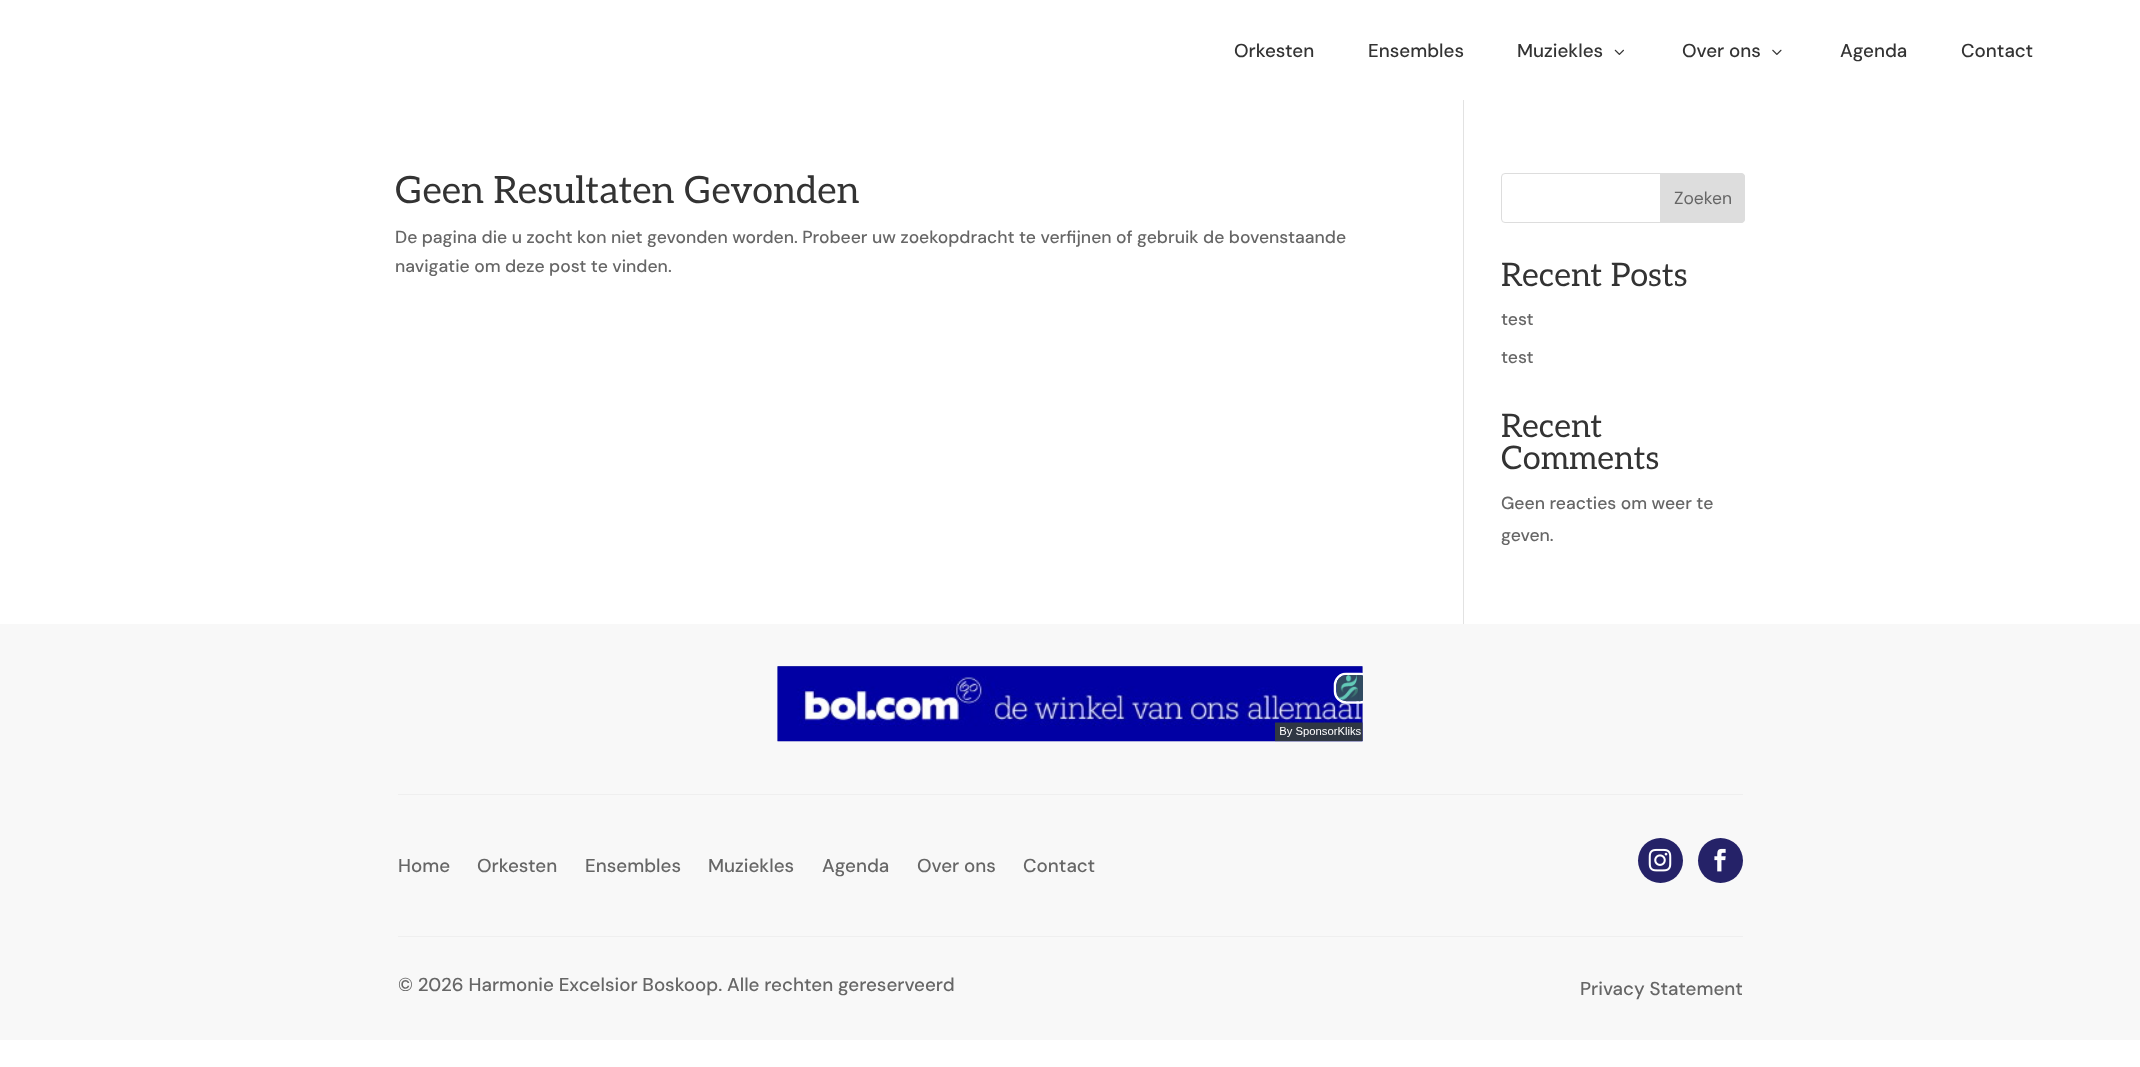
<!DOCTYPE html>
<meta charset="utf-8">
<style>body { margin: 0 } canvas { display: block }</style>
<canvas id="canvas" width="2140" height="1067"></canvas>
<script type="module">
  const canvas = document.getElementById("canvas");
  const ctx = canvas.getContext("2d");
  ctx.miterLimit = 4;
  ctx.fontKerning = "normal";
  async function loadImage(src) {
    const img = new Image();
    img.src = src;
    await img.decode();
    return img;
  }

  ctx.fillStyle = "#ffffff";
  ctx.fillRect(0, 0, 2140, 1067);
  ctx.font = "500 18.75px DM Sans";
  ctx.fillStyle = "#333333";
  ctx.fillText("Orkesten", 1234, 57);
  ctx.fillText("Ensembles", 1368, 57);
  ctx.fillText("Muziekles", 1517, 57);
  ctx.drawImage(await loadImage("img1.png"), 1614, 49, 10, 6);
  ctx.fillText("Over ons", 1682, 57);
  ctx.drawImage(await loadImage("img2.png"), 1772, 49, 10, 6);
  ctx.fillText("Agenda", 1840, 57);
  ctx.fillText("Contact", 1961, 57);
  ctx.fillStyle = "#e2e2e2";
  ctx.fillRect(1463, 100, 1, 524);
  ctx.font = "37.5px Aleo";
  ctx.fillStyle = "#333333";
  ctx.fillText("Geen Resultaten Gevonden", 395, 203);
  ctx.font = "500 17.5px DM Sans";
  ctx.fillStyle = "#666666";
  ctx.fillText("De pagina die u zocht kon niet gevonden worden. Probeer uw zoekopdracht te verfijnen of gebruik de bovenstaande", 395, 243);
  ctx.fillText("navigatie om deze post te vinden.", 395, 272);
  ctx.beginPath();
  ctx.roundRect(1501.5, 173.5, 243, 49, 3.5);
  ctx.strokeStyle = "#dddddd";
  ctx.stroke();
  ctx.fillStyle = "#dddddd";
  ctx.beginPath();
  ctx.roundRect(1660.5, 173.5, 84, 49, [0, 3.5, 3.5, 0]);
  ctx.fill();
  ctx.stroke();
  ctx.font = "17.5px DM Sans";
  ctx.fillStyle = "#666666";
  ctx.fillText("Zoeken", 1674, 204);
  ctx.font = "32.5px Aleo";
  ctx.fillStyle = "#333333";
  ctx.fillText("Recent Posts", 1501, 286);
  ctx.font = "500 17.5px DM Sans";
  ctx.fillStyle = "#666666";
  ctx.fillText("test", 1501, 325);
  ctx.fillText("test", 1501, 363);
  ctx.font = "32.5px Aleo";
  ctx.fillStyle = "#333333";
  ctx.fillText("Recent", 1501, 437);
  ctx.fillText("Comments", 1501, 469);
  ctx.font = "500 17.5px DM Sans";
  ctx.fillStyle = "#666666";
  ctx.fillText("Geen reacties om weer te", 1501, 509);
  ctx.fillText("geven.", 1501, 541);
  ctx.fillStyle = "#f8f8f8";
  ctx.fillRect(0, 624, 2140, 416);
  ctx.fillStyle = "#efefef";
  ctx.fillRect(398, 794, 1345, 1);
  ctx.drawImage(await loadImage("img3.png"), 777, 666, 586, 76);
  ctx.fillRect(398, 936, 1345, 1);
  ctx.font = "500 18.75px DM Sans";
  ctx.fillStyle = "#666666";
  ctx.fillText("Home", 398, 872);
  ctx.fillText("Orkesten", 477, 872);
  ctx.fillText("Ensembles", 585, 872);
  ctx.fillText("Muziekles", 708, 872);
  ctx.fillText("Agenda", 822, 872);
  ctx.fillText("Over ons", 917, 872);
  ctx.fillText("Contact", 1023, 872);
  ctx.fillStyle = "#252268";
  ctx.beginPath();
  ctx.arc(1660.5, 860.5, 22.5, 0, Math.PI * 2);
  ctx.fill();
  ctx.drawImage(await loadImage("img4.png"), 1648, 848, 24, 24);
  ctx.beginPath();
  ctx.arc(1720.5, 860.5, 22.5, 0, Math.PI * 2);
  ctx.fill();
  ctx.drawImage(await loadImage("img5.png"), 1714, 848, 12, 24);
  ctx.fillStyle = "#666666";
  ctx.fillText("© 2026 Harmonie Excelsior Boskoop. Alle rechten gereserveerd", 398, 991);
  ctx.fillText("Privacy Statement", 1580, 995);
</script>
